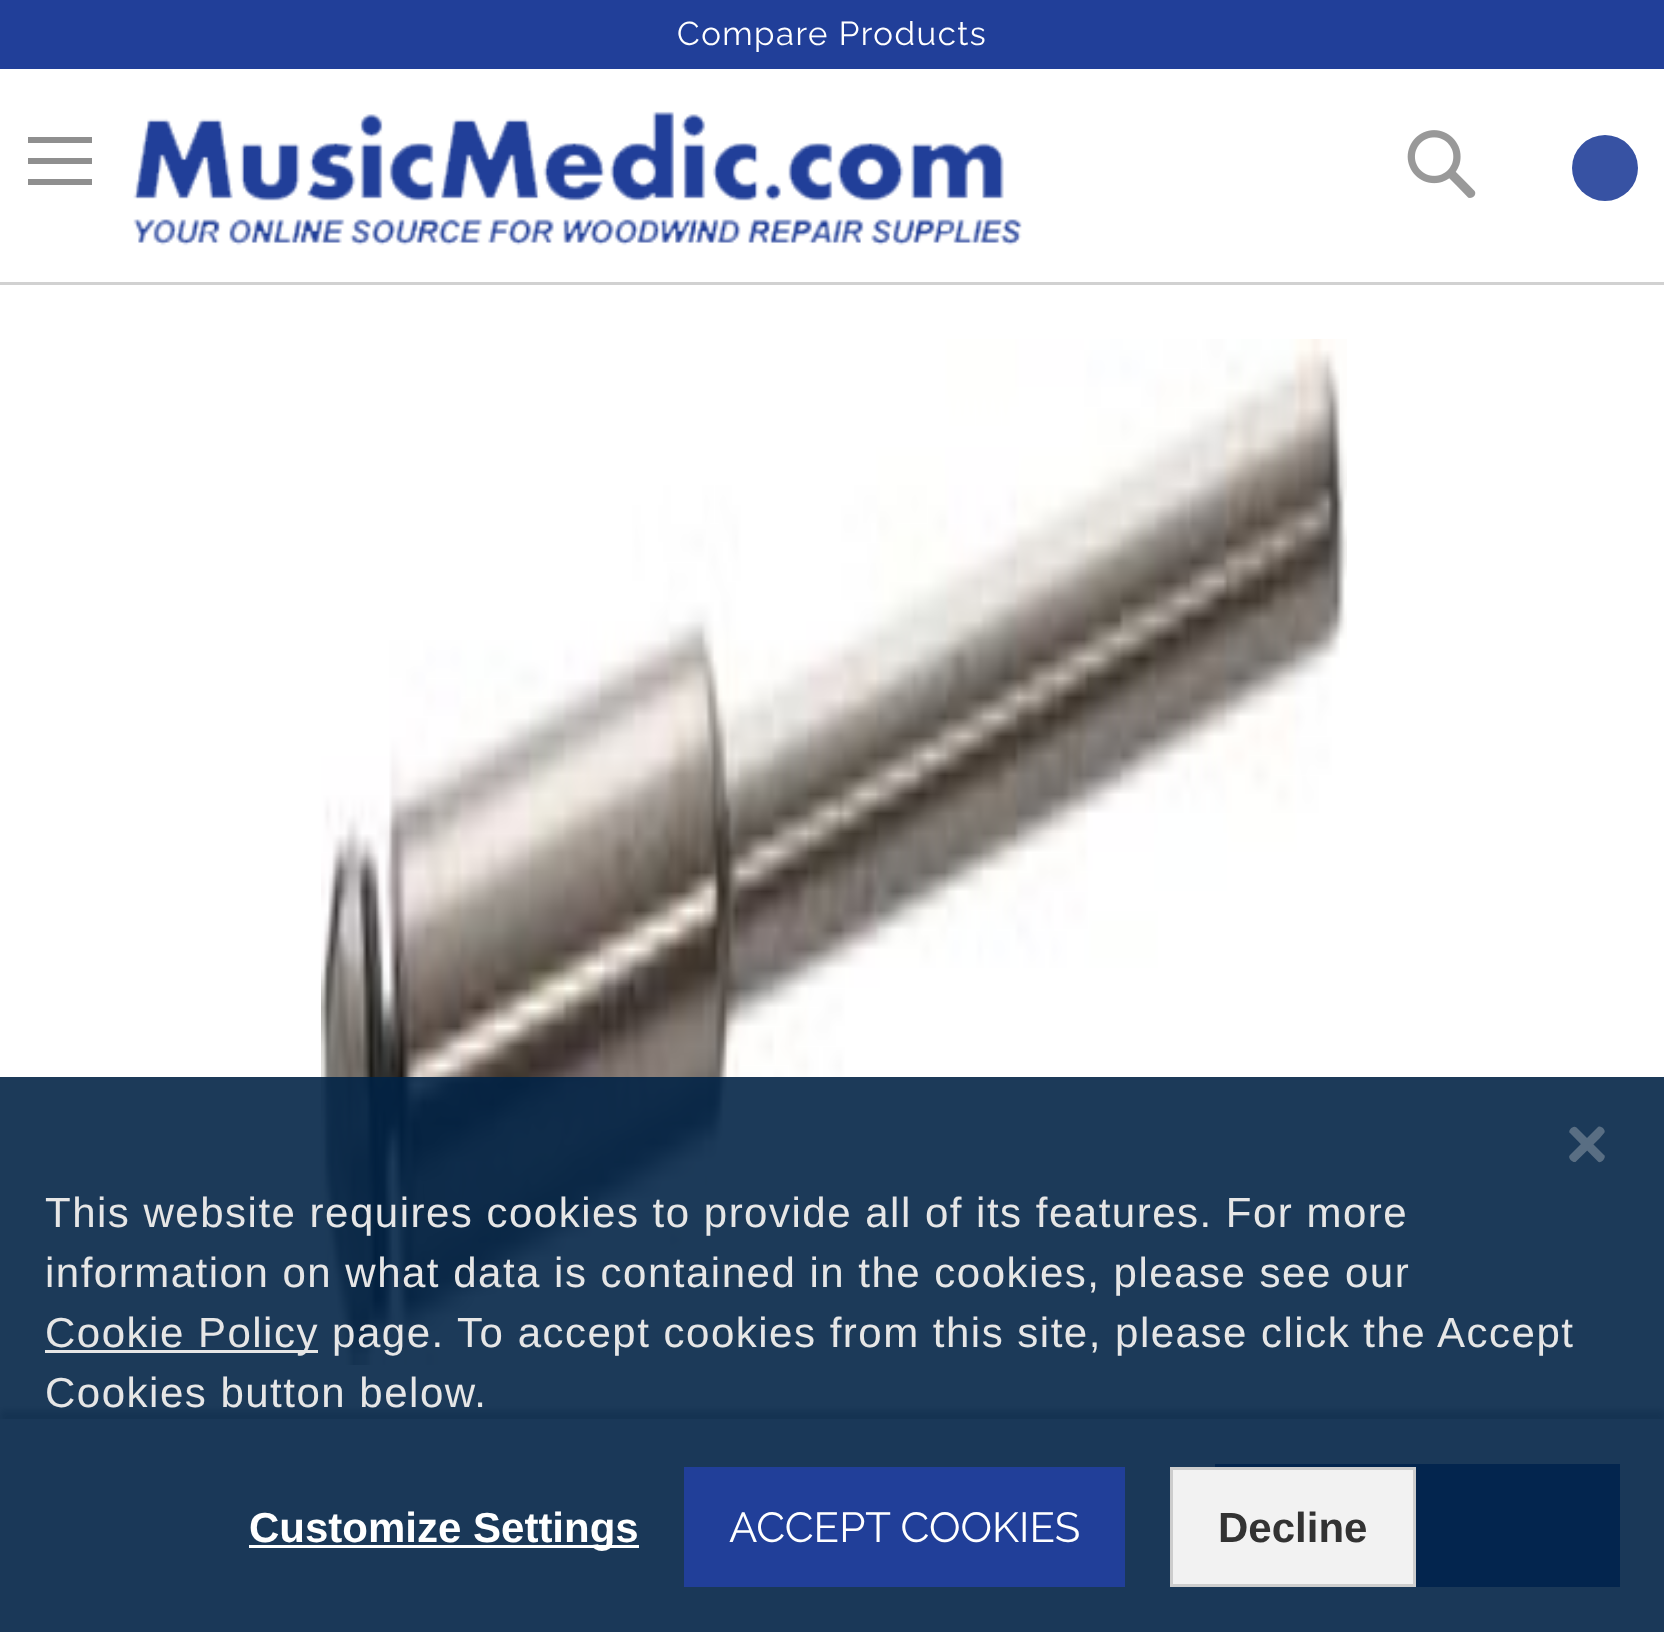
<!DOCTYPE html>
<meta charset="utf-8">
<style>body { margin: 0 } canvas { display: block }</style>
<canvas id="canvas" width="1664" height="1632"></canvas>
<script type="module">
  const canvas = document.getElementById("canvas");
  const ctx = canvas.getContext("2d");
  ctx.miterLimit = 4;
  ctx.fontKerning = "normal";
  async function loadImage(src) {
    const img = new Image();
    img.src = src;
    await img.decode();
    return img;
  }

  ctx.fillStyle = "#ffffff";
  ctx.fillRect(0, 0, 1664, 1632);
  ctx.fillStyle = "#213f99";
  ctx.fillRect(0, 0, 1664, 69);
  ctx.letterSpacing = "1.5px";
  ctx.font = "33px Raleway";
  ctx.fillStyle = "#ffffff";
  ctx.fillText("Compare Products", 677, 45);
  ctx.drawImage(await loadImage("img1.png"), 133, 111, 889, 135);
  ctx.drawImage(await loadImage("img2.png"), 1407, 130, 69, 68);
  ctx.fillStyle = "#d1d1d1";
  ctx.fillRect(0, 282, 1664, 3);
  ctx.fillStyle = "#8f8f8f";
  ctx.beginPath();
  ctx.moveTo(28, 137);
  ctx.lineTo(28, 143);
  ctx.lineTo(92, 143);
  ctx.lineTo(92, 137);
  ctx.closePath();
  ctx.moveTo(28, 164);
  ctx.lineTo(92, 164);
  ctx.lineTo(92, 158);
  ctx.lineTo(28, 158);
  ctx.closePath();
  ctx.moveTo(28, 185);
  ctx.lineTo(92, 185);
  ctx.lineTo(92, 179);
  ctx.lineTo(28, 179);
  ctx.closePath();
  ctx.fill();
  ctx.fillStyle = "#3752a3";
  ctx.beginPath();
  ctx.arc(1605, 168, 33, 0, Math.PI * 2);
  ctx.fill();
  ctx.drawImage(await loadImage("img3.png"), 321, 339, 1026, 1026);
  ctx.fillStyle = "rgba(0, 0, 0, 0.25)";
  ctx.filter = "blur(3px)";
  ctx.beginPath();
  ctx.rect(0, 1410, 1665, 213);
  ctx.fill();
  ctx.filter = "none";
  ctx.fillStyle = "#e9ecf5";
  ctx.fillRect(0, 1419, 1664, 213);
  ctx.fillStyle = "#213f99";
  ctx.fillRect(1215, 1464, 405, 123);
  ctx.fillStyle = "rgba(0, 34, 68, 0.89)";
  ctx.fillRect(0, 1077, 1664, 555);
  ctx.fillStyle = "#596e83";
  ctx.beginPath();
  ctx.moveTo(1576.5, 1127.5);
  ctx.lineTo(1604.5, 1155.5);
  ctx.bezierCurveTo(1606, 1158, 1601.5, 1163, 1598.5, 1162);
  ctx.lineTo(1593, 1156.5);
  ctx.lineTo(1569.5, 1132.5);
  ctx.bezierCurveTo(1568, 1130, 1573.5, 1124.5, 1576.5, 1127.5);
  ctx.closePath();
  ctx.fill();
  ctx.beginPath();
  ctx.moveTo(1570, 1155);
  ctx.lineTo(1598, 1127);
  ctx.bezierCurveTo(1601, 1125, 1606, 1130, 1604.5, 1132.5);
  ctx.lineTo(1599.5, 1138.5);
  ctx.lineTo(1575.5, 1162);
  ctx.bezierCurveTo(1572.5, 1163, 1567, 1157.5, 1570, 1155);
  ctx.closePath();
  ctx.fill();
  ctx.font = "42px Liberation Sans";
  ctx.fillStyle = "#e6e6e6";
  ctx.fillText("This website requires cookies to provide all of its features. For more", 45, 1227);
  ctx.fillText("information on what data is contained in the cookies, please see our", 45, 1287);
  ctx.fillRect(45, 1350, 273, 3);
  ctx.fillText("Cookie Policy page. To accept cookies from this site, please click the Accept", 45, 1347);
  ctx.fillText("Cookies button below.", 45, 1407);
  ctx.fillStyle = "#ffffff";
  ctx.fillRect(249, 1545, 390, 3);
  ctx.letterSpacing = "0px";
  ctx.font = "bold 42px Liberation Sans";
  ctx.fillText("Customize Settings", 249, 1542);
  ctx.fillStyle = "#213f99";
  ctx.fillRect(684, 1467, 441, 120);
  ctx.font = "42px Raleway";
  ctx.fillStyle = "#ffffff";
  ctx.fillText("ACCEPT COOKIES", 729, 1542);
  ctx.fillStyle = "#f2f2f2";
  ctx.beginPath();
  ctx.rect(1171.5, 1468.5, 243, 117);
  ctx.fill();
  ctx.strokeStyle = "#cdcdcd";
  ctx.lineWidth = 3;
  ctx.stroke();
  ctx.font = "bold 42px Liberation Sans";
  ctx.fillStyle = "#333333";
  ctx.fillText("Decline", 1218, 1542);
</script>
